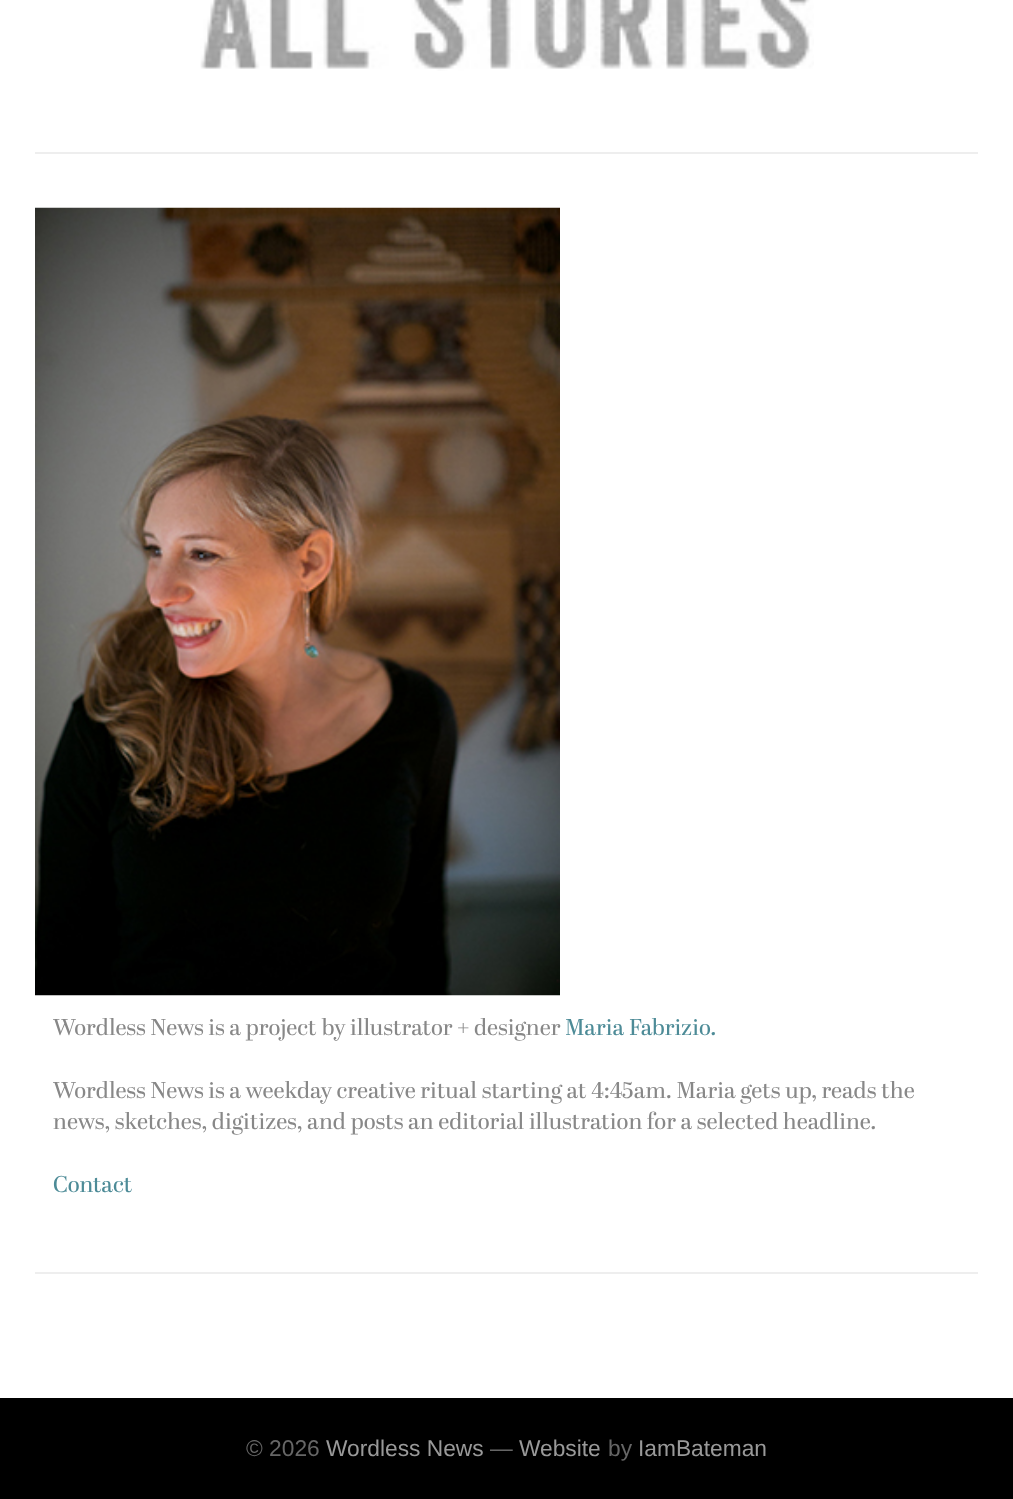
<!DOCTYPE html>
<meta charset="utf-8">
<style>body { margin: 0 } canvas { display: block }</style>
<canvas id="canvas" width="1013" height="1499"></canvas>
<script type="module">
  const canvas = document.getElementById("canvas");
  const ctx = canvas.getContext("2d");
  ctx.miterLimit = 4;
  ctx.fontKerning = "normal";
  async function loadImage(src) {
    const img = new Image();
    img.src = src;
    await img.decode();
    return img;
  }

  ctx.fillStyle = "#ffffff";
  ctx.fillRect(0, 0, 1013, 1499);
  ctx.drawImage(await loadImage("img1.png"), 200, 0, 614, 71);
  ctx.fillStyle = "#eeeeee";
  ctx.fillRect(35, 152, 943, 2);
  ctx.drawImage(await loadImage("img2.png"), 35, 207, 525, 789);
  ctx.font = "22.75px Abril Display";
  ctx.fillStyle = "#888888";
  ctx.fillText("Wordless News is a project by illustrator + designer", 53, 1035);
  ctx.fillStyle = "#4d8b97";
  ctx.fillText("Maria Fabrizio.", 565, 1035);
  ctx.fillStyle = "#888888";
  ctx.fillText("Wordless News is a weekday creative ritual starting at 4:45am. Maria gets up, reads the", 53, 1098);
  ctx.fillText("news, sketches, digitizes, and posts an editorial illustration for a selected headline.", 53, 1129);
  ctx.fillStyle = "#4d8b97";
  ctx.fillText("Contact", 53, 1192);
  ctx.fillStyle = "#eeeeee";
  ctx.fillRect(35, 1272, 943, 2);
  ctx.fillStyle = "#000000";
  ctx.fillRect(0, 1398, 1013, 101);
  ctx.font = "22.75px Liberation Sans";
  ctx.fillStyle = "#666666";
  ctx.fillText("© 2026", 246, 1456);
  ctx.fillStyle = "#999999";
  ctx.fillText("Wordless News", 326, 1456);
  ctx.fillStyle = "#666666";
  ctx.fillText("—", 490, 1456);
  ctx.fillStyle = "#999999";
  ctx.fillText("Website", 519, 1456);
  ctx.fillStyle = "#666666";
  ctx.fillText("by", 608, 1456);
  ctx.fillStyle = "#999999";
  ctx.fillText("IamBateman", 638, 1456);
</script>
